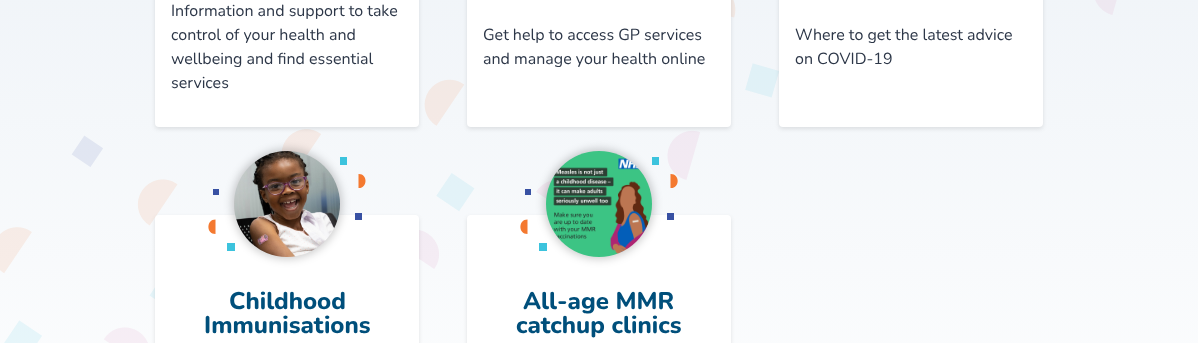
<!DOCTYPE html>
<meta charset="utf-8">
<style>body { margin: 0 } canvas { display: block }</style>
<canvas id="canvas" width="1198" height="343"></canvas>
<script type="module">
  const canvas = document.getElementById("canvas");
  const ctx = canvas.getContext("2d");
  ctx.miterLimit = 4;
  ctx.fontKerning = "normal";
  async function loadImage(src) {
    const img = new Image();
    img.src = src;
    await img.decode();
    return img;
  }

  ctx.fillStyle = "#ffffff";
  ctx.fillRect(0, 0, 1198, 343);
  ctx.drawImage(await loadImage("img1.png"), 0, 0, 1198, 343);
  ctx.fillStyle = "rgba(0, 0, 0, 0.1)";
  ctx.filter = "blur(2px)";
  ctx.beginPath();
  ctx.roundRect(155, -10, 264, 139, 4);
  ctx.fill();
  ctx.filter = "none";
  ctx.fillStyle = "#ffffff";
  ctx.beginPath();
  ctx.roundRect(155, -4, 264, 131, 4);
  ctx.fill();
  ctx.font = "16px Nunito";
  ctx.fillStyle = "#2d3748";
  ctx.fillText("Information and support to take", 171, 16);
  ctx.fillText("control of your health and", 171, 40);
  ctx.fillText("wellbeing and find essential", 171, 64);
  ctx.fillText("services", 171, 88);
  ctx.fillStyle = "rgba(0, 0, 0, 0.1)";
  ctx.filter = "blur(2px)";
  ctx.beginPath();
  ctx.roundRect(467, -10, 264, 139, 4);
  ctx.fill();
  ctx.filter = "none";
  ctx.fillStyle = "#ffffff";
  ctx.beginPath();
  ctx.roundRect(467, -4, 264, 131, 4);
  ctx.fill();
  ctx.fillStyle = "#2d3748";
  ctx.fillText("Get help to access GP services", 483, 40);
  ctx.fillText("and manage your health online", 483, 64);
  ctx.fillStyle = "rgba(0, 0, 0, 0.1)";
  ctx.filter = "blur(2px)";
  ctx.beginPath();
  ctx.roundRect(779, -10, 264, 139, 4);
  ctx.fill();
  ctx.filter = "none";
  ctx.fillStyle = "#ffffff";
  ctx.beginPath();
  ctx.roundRect(779, -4, 264, 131, 4);
  ctx.fill();
  ctx.fillStyle = "#2d3748";
  ctx.fillText("Where to get the latest advice", 795, 40);
  ctx.fillText("on COVID-19", 795, 64);
  ctx.fillStyle = "rgba(0, 0, 0, 0.1)";
  ctx.filter = "blur(2px)";
  ctx.beginPath();
  ctx.roundRect(155, 217, 264, 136, 4);
  ctx.fill();
  ctx.filter = "none";
  ctx.fillStyle = "#ffffff";
  ctx.beginPath();
  ctx.roundRect(155, 215, 264, 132, 4);
  ctx.fill();
  ctx.fillStyle = "#3cc3dd";
  ctx.fillRect(227, 243, 8, 8);
  ctx.fillRect(340, 157, 7, 8);
  ctx.fillStyle = "rgba(0, 0, 0, 0.2)";
  ctx.filter = "blur(4px)";
  ctx.beginPath();
  ctx.roundRect(232, 149, 110, 110, 55);
  ctx.fill();
  ctx.filter = "none";
  ctx.drawImage(await loadImage("img2.png"), 234, 151, 106, 106);
  ctx.fillStyle = "#f47930";
  ctx.beginPath();
  ctx.moveTo(215.5, 234);
  ctx.lineTo(215.5, 219.5);
  ctx.bezierCurveTo(206, 219.5, 206, 234.5, 216, 234);
  ctx.closePath();
  ctx.fill("evenodd");
  ctx.fillStyle = "#3851a3";
  ctx.fillRect(213, 189, 6, 6);
  ctx.fillStyle = "#f47930";
  ctx.beginPath();
  ctx.moveTo(358.5, 174);
  ctx.lineTo(358.5, 188);
  ctx.bezierCurveTo(368, 188.5, 368, 173, 358, 174);
  ctx.closePath();
  ctx.fill("evenodd");
  ctx.fillStyle = "#3851a3";
  ctx.fillRect(355, 213, 7, 7);
  ctx.font = "800 24px Nunito";
  ctx.fillStyle = "#004f7b";
  ctx.fillText("Childhood", 229, 309);
  ctx.fillText("Immunisations", 204, 333);
  ctx.fillStyle = "rgba(0, 0, 0, 0.1)";
  ctx.filter = "blur(2px)";
  ctx.beginPath();
  ctx.roundRect(467, 217, 264, 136, 4);
  ctx.fill();
  ctx.filter = "none";
  ctx.fillStyle = "#ffffff";
  ctx.beginPath();
  ctx.roundRect(467, 215, 264, 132, 4);
  ctx.fill();
  ctx.fillStyle = "#3cc3dd";
  ctx.fillRect(539, 243, 8, 8);
  ctx.fillRect(652, 157, 7, 8);
  ctx.fillStyle = "rgba(0, 0, 0, 0.2)";
  ctx.filter = "blur(4px)";
  ctx.beginPath();
  ctx.roundRect(544, 149, 110, 110, 55);
  ctx.fill();
  ctx.filter = "none";
  ctx.drawImage(await loadImage("img3.png"), 546, 151, 106, 106);
  ctx.fillStyle = "#f47930";
  ctx.beginPath();
  ctx.moveTo(527.5, 234);
  ctx.lineTo(527.5, 219.5);
  ctx.bezierCurveTo(518, 219.5, 518, 234.5, 528, 234);
  ctx.closePath();
  ctx.fill("evenodd");
  ctx.fillStyle = "#3851a3";
  ctx.fillRect(525, 189, 6, 6);
  ctx.fillStyle = "#f47930";
  ctx.beginPath();
  ctx.moveTo(670.5, 174);
  ctx.lineTo(670.5, 188);
  ctx.bezierCurveTo(680.5, 188.5, 680, 173, 670, 174);
  ctx.closePath();
  ctx.fill("evenodd");
  ctx.fillStyle = "#3851a3";
  ctx.fillRect(667, 213, 7, 7);
  ctx.fillStyle = "#004f7b";
  ctx.fillText("All-age MMR", 523, 309);
  ctx.fillText("catchup clinics", 516, 333);
</script>
